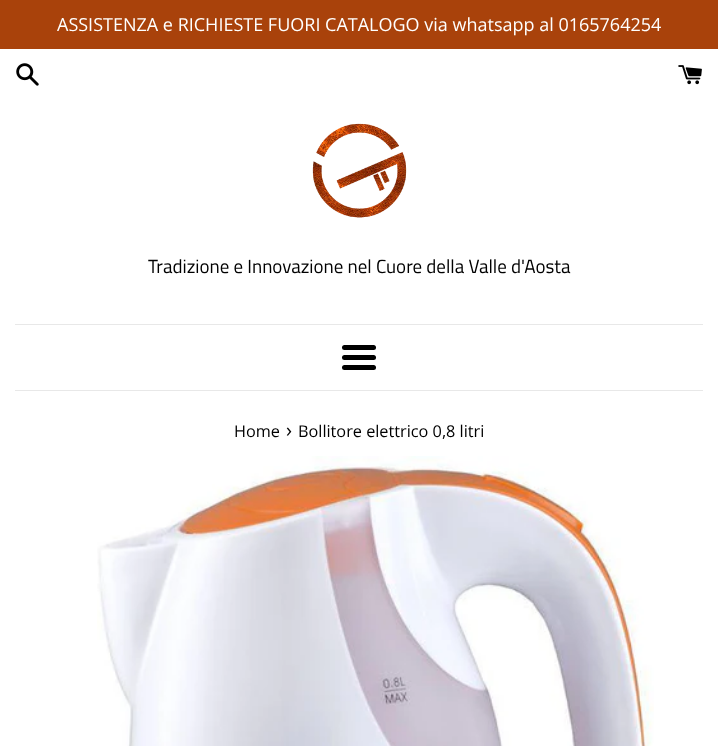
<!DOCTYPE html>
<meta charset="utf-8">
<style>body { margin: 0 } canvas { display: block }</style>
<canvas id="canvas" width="718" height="746"></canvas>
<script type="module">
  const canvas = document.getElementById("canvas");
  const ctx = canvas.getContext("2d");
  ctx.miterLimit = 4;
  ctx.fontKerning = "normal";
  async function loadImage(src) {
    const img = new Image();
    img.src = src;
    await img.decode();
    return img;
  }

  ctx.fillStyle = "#ffffff";
  ctx.fillRect(0, 0, 718, 746);
  ctx.fillStyle = "#a9420b";
  ctx.fillRect(0, 0, 718, 49);
  ctx.font = "18px Open Sans";
  ctx.fillStyle = "#ffffff";
  ctx.fillText("ASSISTENZA e RICHIESTE FUORI CATALOGO via whatsapp al 0165764254", 57, 31);
  ctx.drawImage(await loadImage("img1.png"), 16, 63, 23, 23);
  ctx.drawImage(await loadImage("img2.png"), 678, 65, 24, 20);
  ctx.drawImage(await loadImage("img3.png"), 312, 123, 95, 95);
  ctx.font = "19px Titillium Web";
  ctx.fillStyle = "#000000";
  ctx.fillText("Tradizione e Innovazione nel Cuore della Valle d'Aosta", 148, 273);
  ctx.fillStyle = "#e8e8e8";
  ctx.fillRect(15, 324, 688, 1);
  ctx.fillStyle = "#000000";
  ctx.beginPath();
  ctx.roundRect(342, 345, 34, 5, 2.5);
  ctx.fill();
  ctx.beginPath();
  ctx.roundRect(342, 355, 34, 5, 2.5);
  ctx.fill();
  ctx.beginPath();
  ctx.roundRect(342, 365, 34, 5, 2.5);
  ctx.fill();
  ctx.fillStyle = "#e8e8e8";
  ctx.fillRect(15, 390, 688, 1);
  ctx.font = "16.25px Open Sans";
  ctx.fillStyle = "#000000";
  ctx.fillText("Home", 234, 437);
  ctx.font = "20px Open Sans";
  ctx.fillText("›", 286, 437);
  ctx.font = "16.25px Open Sans";
  ctx.fillText("Bollitore elettrico 0,8 litri", 298, 437);
  ctx.drawImage(await loadImage("img4.png"), 97, 456, 557, 290);
</script>
